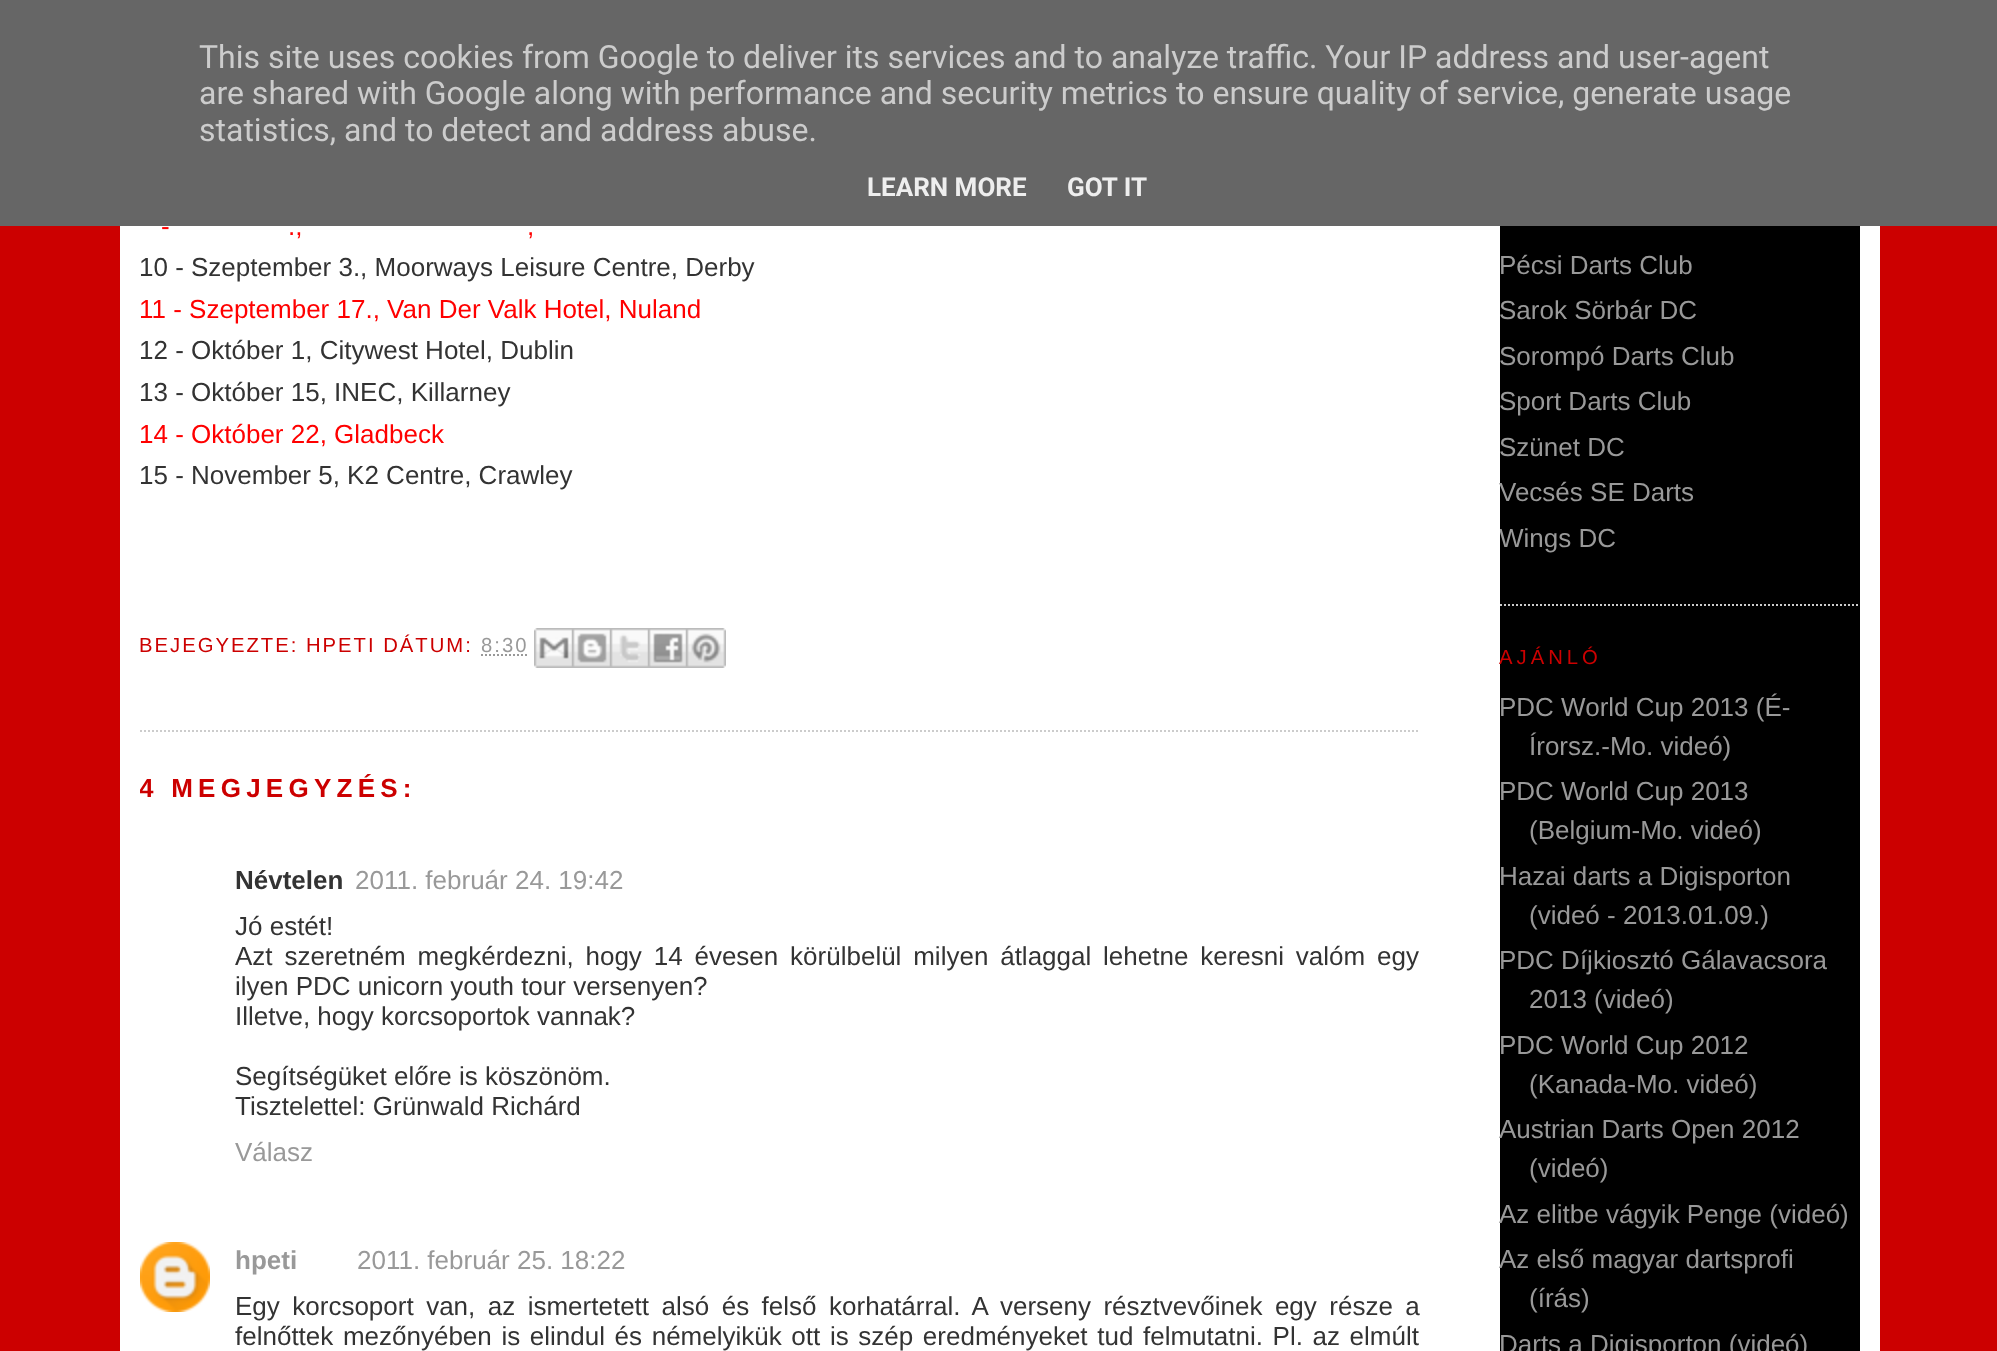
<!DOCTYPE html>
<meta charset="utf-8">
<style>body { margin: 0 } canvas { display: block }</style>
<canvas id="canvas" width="1997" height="1351"></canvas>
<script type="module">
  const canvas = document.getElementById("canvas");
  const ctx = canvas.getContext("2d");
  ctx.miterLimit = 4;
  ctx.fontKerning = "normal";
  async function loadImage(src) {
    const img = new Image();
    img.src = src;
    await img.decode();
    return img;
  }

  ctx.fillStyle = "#cc0000";
  ctx.fillRect(0, 0, 1997, 1351);
  ctx.fillStyle = "#666666";
  ctx.fillRect(0, 0, 1997, 226);
  ctx.font = "32px Roboto";
  ctx.fillStyle = "#cccccc";
  ctx.fillText("This site uses cookies from Google to deliver its services and to analyze traffic. Your IP address and user-agent", 199, 68);
  ctx.fillText("are shared with Google along with performance and security metrics to ensure quality of service, generate usage", 199, 104);
  ctx.fillText("statistics, and to detect and address abuse.", 199, 141);
  ctx.font = "bold 26px Roboto";
  ctx.fillStyle = "#eeeeee";
  ctx.fillText("LEARN MORE", 867, 196);
  ctx.fillText("GOT IT", 1067, 196);
  ctx.fillStyle = "#ffffff";
  ctx.fillRect(120, 226, 1760, 1125);
  ctx.beginPath();
  ctx.moveTo(140, 731);
  ctx.lineTo(1420, 731);
  ctx.strokeStyle = "#cccccc";
  ctx.lineWidth = 2;
  ctx.setLineDash([2, 2]);
  ctx.stroke();
  ctx.font = "26px Liberation Sans";
  ctx.fillStyle = "#ff0000";
  ctx.fillText("-", 161, 235);
  ctx.fillText(".,", 288, 235);
  ctx.fillText(",", 527, 235);
  ctx.fillStyle = "#333333";
  ctx.fillText("10 - Szeptember 3., Moorways Leisure Centre, Derby", 139, 276);
  ctx.fillStyle = "#ff0000";
  ctx.fillText("11 - Szeptember 17., Van Der Valk Hotel, Nuland", 139, 318);
  ctx.fillStyle = "#333333";
  ctx.fillText("12 - Október 1, Citywest Hotel, Dublin", 139, 359);
  ctx.fillText("13 - Október 15, INEC, Killarney", 139, 401);
  ctx.fillStyle = "#ff0000";
  ctx.fillText("14 - Október 22, Gladbeck", 139, 443);
  ctx.fillStyle = "#333333";
  ctx.fillText("15 - November 5, K2 Centre, Crawley", 139, 484);
  ctx.letterSpacing = "2px";
  ctx.font = "20.25px Liberation Sans";
  ctx.fillStyle = "#cc0000";
  ctx.fillText("BEJEGYEZTE: HPETI DÁTUM:", 139, 652);
  ctx.fillStyle = "#999999";
  ctx.fillText("8:30", 481, 652);
  ctx.beginPath();
  ctx.moveTo(481, 655);
  ctx.lineTo(528.5, 655);
  ctx.strokeStyle = "#999999";
  ctx.stroke();
  ctx.drawImage(await loadImage("img1.png"), 534, 628, 38, 40);
  ctx.drawImage(await loadImage("img2.png"), 572, 628, 38, 40);
  ctx.drawImage(await loadImage("img3.png"), 610, 628, 38, 40);
  ctx.drawImage(await loadImage("img4.png"), 648, 628, 38, 40);
  ctx.drawImage(await loadImage("img5.png"), 686, 628, 40, 40);
  ctx.save();
  ctx.beginPath();
  ctx.rect(140, 0, 1280, 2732);
  ctx.clip();
  ctx.letterSpacing = "5.25px";
  ctx.font = "bold 26px Liberation Sans";
  ctx.fillStyle = "#cc0000";
  ctx.fillText("4 MEGJEGYZÉS:", 139, 797);
  ctx.restore();
  ctx.letterSpacing = "0px";
  ctx.font = "bold 26px Liberation Sans";
  ctx.fillStyle = "#333333";
  ctx.fillText("Névtelen", 235, 889);
  ctx.font = "26px Liberation Sans";
  ctx.fillStyle = "#999999";
  ctx.fillText("2011. február 24. 19:42", 355, 889);
  ctx.fillStyle = "#333333";
  ctx.fillText("Jó estét!", 235, 935);
  ctx.wordSpacing = "4.6px";
  ctx.fillText("Azt szeretném megkérdezni, hogy 14 évesen körülbelül milyen átlaggal lehetne keresni valóm egy", 235, 965);
  ctx.wordSpacing = "0px";
  ctx.fillText("ilyen PDC unicorn youth tour versenyen?", 235, 995);
  ctx.fillText("Illetve, hogy korcsoportok vannak?", 235, 1025);
  ctx.fillText("Segítségüket előre is köszönöm.", 235, 1085);
  ctx.fillText("Tisztelettel: Grünwald Richárd", 235, 1115);
  ctx.fillStyle = "#999999";
  ctx.fillText("Válasz", 235, 1161);
  ctx.drawImage(await loadImage("img6.png"), 140, 1242, 70, 70);
  ctx.font = "bold 26px Liberation Sans";
  ctx.fillText("hpeti", 235, 1269);
  ctx.font = "26px Liberation Sans";
  ctx.fillText("2011. február 25. 18:22", 357, 1269);
  ctx.wordSpacing = "5.25px";
  ctx.fillStyle = "#333333";
  ctx.fillText("Egy korcsoport van, az ismertetett alsó és felső korhatárral. A verseny résztvevőinek egy része a", 235, 1315);
  ctx.wordSpacing = "2.4px";
  ctx.fillText("felnőttek mezőnyében is elindul és némelyikük ott is szép eredményeket tud felmutatni. Pl. az elmúlt", 235, 1345);
  ctx.fillStyle = "#000000";
  ctx.fillRect(1500, 226, 360, 1125);
  ctx.beginPath();
  ctx.moveTo(1500, 605);
  ctx.lineTo(1860, 605);
  ctx.strokeStyle = "#cccccc";
  ctx.stroke();
  ctx.wordSpacing = "0px";
  ctx.fillStyle = "#999999";
  ctx.fillText("Pécsi Darts Club", 1499, 274);
  ctx.fillText("Sarok Sörbár DC", 1499, 319);
  ctx.fillText("Sorompó Darts Club", 1499, 365);
  ctx.fillText("Sport Darts Club", 1499, 410);
  ctx.fillText("Szünet DC", 1499, 456);
  ctx.fillText("Vecsés SE Darts", 1499, 501);
  ctx.save();
  ctx.beginPath();
  ctx.rect(1500, 0, 360, 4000);
  ctx.clip();
  ctx.fillText("Wings DC", 1499, 547);
  ctx.restore();
  ctx.letterSpacing = "4px";
  ctx.font = "20.25px Liberation Sans";
  ctx.fillStyle = "#cc0000";
  ctx.fillText("AJÁNLÓ", 1499, 664);
  ctx.letterSpacing = "0px";
  ctx.font = "26px Liberation Sans";
  ctx.fillStyle = "#999999";
  ctx.fillText("PDC World Cup 2013 (É-", 1499, 716);
  ctx.fillText("Írorsz.-Mo. videó)", 1529, 755);
  ctx.fillText("PDC World Cup 2013", 1499, 800);
  ctx.fillText("(Belgium-Mo. videó)", 1529, 839);
  ctx.fillText("Hazai darts a Digisporton", 1499, 885);
  ctx.fillText("(videó - 2013.01.09.)", 1529, 924);
  ctx.fillText("PDC Díjkiosztó Gálavacsora", 1499, 969);
  ctx.fillText("2013 (videó)", 1529, 1008);
  ctx.fillText("PDC World Cup 2012", 1499, 1054);
  ctx.fillText("(Kanada-Mo. videó)", 1529, 1093);
  ctx.fillText("Austrian Darts Open 2012", 1499, 1138);
  ctx.fillText("(videó)", 1529, 1177);
  ctx.fillText("Az elitbe vágyik Penge (videó)", 1499, 1223);
  ctx.fillText("Az első magyar dartsprofi", 1499, 1268);
  ctx.fillText("(írás)", 1529, 1307);
  ctx.fillText("Darts a Digisporton (videó)", 1499, 1353);
</script>
